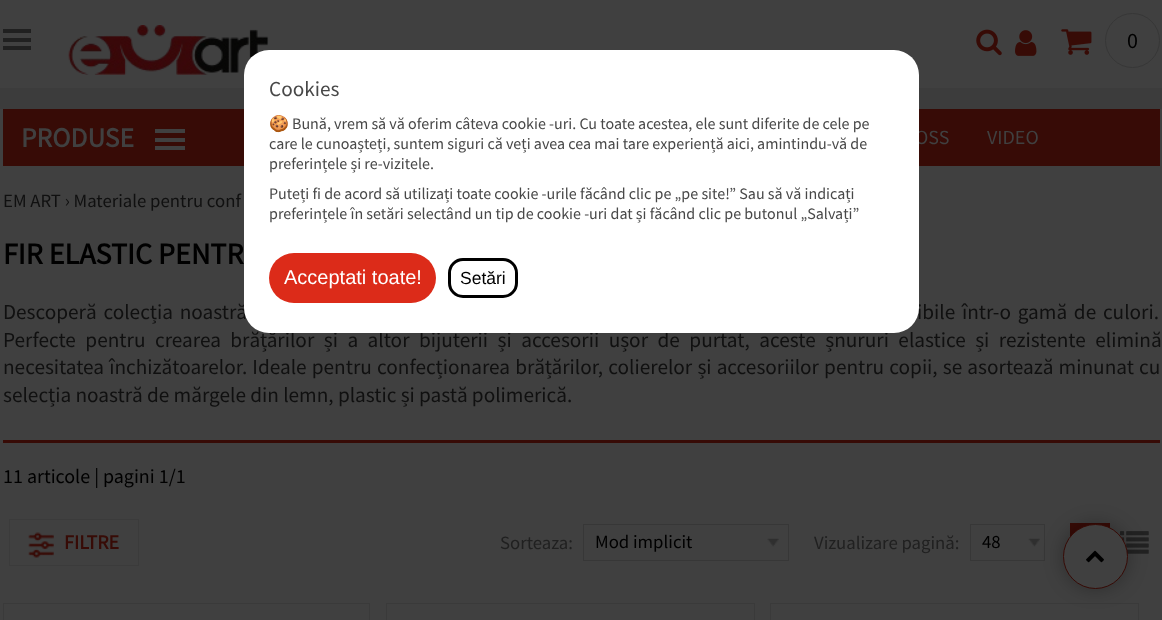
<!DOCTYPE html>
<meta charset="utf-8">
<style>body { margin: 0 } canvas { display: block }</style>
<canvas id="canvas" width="1162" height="620"></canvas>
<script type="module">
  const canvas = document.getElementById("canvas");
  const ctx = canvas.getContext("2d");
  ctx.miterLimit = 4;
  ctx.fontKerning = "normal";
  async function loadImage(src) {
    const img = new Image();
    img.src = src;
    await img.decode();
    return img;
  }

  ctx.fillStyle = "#404040";
  ctx.fillRect(0, 0, 1162, 620);
  ctx.fillStyle = "#202020";
  ctx.fillRect(3, 38, 28, 4);
  ctx.fillRect(3, 29, 28, 4);
  ctx.fillRect(3, 46, 28, 4);
  ctx.drawImage(await loadImage("img1.png"), 68, 25, 201, 50);
  ctx.drawImage(await loadImage("img2.png"), 976, 29, 26, 27);
  ctx.drawImage(await loadImage("img3.png"), 1015, 30, 22, 26);
  ctx.drawImage(await loadImage("img4.png"), 1061, 29, 31, 26);
  ctx.beginPath();
  ctx.arc(1132.5, 40.5, 27, 0, Math.PI * 2);
  ctx.strokeStyle = "#373737";
  ctx.stroke();
  ctx.font = "22px Source Sans Pro";
  ctx.fillStyle = "#000000";
  ctx.fillText("0", 1127, 48);
  ctx.fillStyle = "#3c3c3c";
  ctx.fillRect(0, 88, 1162, 21);
  ctx.fillStyle = "#370b06";
  ctx.fillRect(3, 109, 1157, 57);
  ctx.font = "20px Source Sans Pro";
  ctx.fillStyle = "#404040";
  ctx.fillText("OSS", 915, 144);
  ctx.wordSpacing = "2.5px";
  ctx.font = "21.25px Source Sans Pro";
  ctx.fillStyle = "#101010";
  ctx.fillText("Descoperă colecția noastră", 3, 319);
  ctx.fillText("ibile într-o gamă de culori.", 917, 319);
  ctx.wordSpacing = "5.25px";
  ctx.fillText("Perfecte pentru crearea brățărilor și a altor bijuterii și accesorii ușor de purtat, aceste șnururi elastice și rezistente elimină", 3, 347);
  ctx.fillStyle = "#ffffff";
  ctx.beginPath();
  ctx.roundRect(244, 50, 675, 283, 25);
  ctx.fill();
  ctx.wordSpacing = "0px";
  ctx.fillStyle = "#484848";
  ctx.fillText("Cookies", 269, 96);
  ctx.font = "16px Noto Color Emoji";
  ctx.fillText("🍪", 269, 129);
  ctx.font = "16px Source Sans Pro";
  ctx.fillText("Bună, vrem să vă oferim câteva cookie -uri. Cu toate acestea, ele sunt diferite de cele pe", 292, 129);
  ctx.fillText("care le cunoașteți, suntem siguri că veți avea cea mai tare experiență aici, amintindu-vă de", 269, 149);
  ctx.fillText("preferințele și re-vizitele.", 269, 169);
  ctx.fillText("Puteți fi de acord să utilizați toate cookie -urile făcând clic pe „pe site!” Sau să vă indicați", 269, 199);
  ctx.fillText("preferințele în setări selectând un tip de cookie -uri dat și făcând clic pe butonul „Salvați”", 269, 219);
  ctx.fillStyle = "#dc2b19";
  ctx.beginPath();
  ctx.roundRect(269, 253, 167, 50, 25);
  ctx.fill();
  ctx.font = "20px Liberation Sans";
  ctx.fillStyle = "#ffffff";
  ctx.fillText("Аcceptati toate!", 284, 284);
  ctx.beginPath();
  ctx.roundRect(449.5, 259.5, 67, 37, 13.5);
  ctx.strokeStyle = "#000000";
  ctx.lineWidth = 3;
  ctx.stroke();
  ctx.font = "17.5px Liberation Sans";
  ctx.fillStyle = "#000000";
  ctx.fillText("Setări", 460, 284);
  ctx.font = "bold 27.5px Source Sans Pro";
  ctx.fillStyle = "#404040";
  ctx.fillText("PRODUSE", 21, 147);
  ctx.fillRect(155, 138, 30, 4);
  ctx.fillRect(155, 129, 30, 4);
  ctx.fillRect(155, 146, 30, 4);
  ctx.font = "20px Source Sans Pro";
  ctx.fillText("VIDEO", 987, 144);
  ctx.font = "18.75px Source Sans Pro";
  ctx.fillStyle = "#101010";
  ctx.fillText("EM ART › Materiale pentru conf", 3, 207);
  ctx.font = "bold 30px Source Sans Pro";
  ctx.fillStyle = "#000000";
  ctx.fillText("FIR ELASTIC PENTR", 3, 264);
  ctx.wordSpacing = "0.9px";
  ctx.font = "21.25px Source Sans Pro";
  ctx.fillStyle = "#101010";
  ctx.fillText("necesitatea închizătoarelor. Ideale pentru confecționarea brățărilor, colierelor și accesoriilor pentru copii, se asortează minunat cu", 3, 374);
  ctx.wordSpacing = "0px";
  ctx.fillText("selecția noastră de mărgele din lemn, plastic și pastă polimerică.", 3, 402);
  ctx.fillStyle = "#370b06";
  ctx.fillRect(3, 440, 1157, 3);
  ctx.font = "20px Source Sans Pro";
  ctx.fillStyle = "#000000";
  ctx.fillText("11 articole | pagini 1/1", 3, 483);
  ctx.strokeStyle = "#3b3b3b";
  ctx.lineWidth = 1;
  ctx.strokeRect(9.5, 519.5, 129, 46);
  ctx.drawImage(await loadImage("img5.png"), 28, 532, 26, 26);
  ctx.font = "bold 20px Source Sans Pro";
  ctx.fillStyle = "#370b06";
  ctx.fillText("FILTRE", 64, 549);
  ctx.font = "18.75px Source Sans Pro";
  ctx.fillStyle = "#202020";
  ctx.fillText("Sorteaza:", 500, 549);
  ctx.drawImage(await loadImage("img6.png"), 767, 538, 12, 9);
  ctx.strokeStyle = "#373737";
  ctx.strokeRect(583.5, 524.5, 205, 36);
  ctx.fillStyle = "#000000";
  ctx.fillText("Mod implicit", 595, 548);
  ctx.fillStyle = "#202020";
  ctx.fillText("Vizualizare pagină:", 814, 549);
  ctx.drawImage(await loadImage("img7.png"), 1028, 538, 12, 9);
  ctx.strokeRect(970.5, 524.5, 74, 36);
  ctx.fillStyle = "#000000";
  ctx.fillText("48", 982, 548);
  ctx.fillStyle = "#370b06";
  ctx.fillRect(1070, 523, 40, 14);
  ctx.drawImage(await loadImage("img8.png"), 1075, 531, 1, 1);
  ctx.drawImage(await loadImage("img9.png"), 1120, 531, 29, 23);
  ctx.strokeStyle = "#3a3a3a";
  ctx.strokeRect(3.5, 603.5, 366, 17);
  ctx.strokeRect(386.5, 603.5, 368, 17);
  ctx.strokeRect(770.5, 603.5, 368, 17);
  ctx.fillStyle = "rgba(0, 0, 0, 0.3)";
  ctx.filter = "blur(9.5px)";
  ctx.beginPath();
  ctx.roundRect(1063, 524, 65, 65, 32.5);
  ctx.fill();
  ctx.filter = "none";
  ctx.fillStyle = "#404040";
  ctx.beginPath();
  ctx.arc(1095.5, 556.5, 32, 0, Math.PI * 2);
  ctx.fill();
  ctx.strokeStyle = "#370b06";
  ctx.stroke();
  ctx.drawImage(await loadImage("img10.png"), 1086, 550, 18, 13);
</script>
